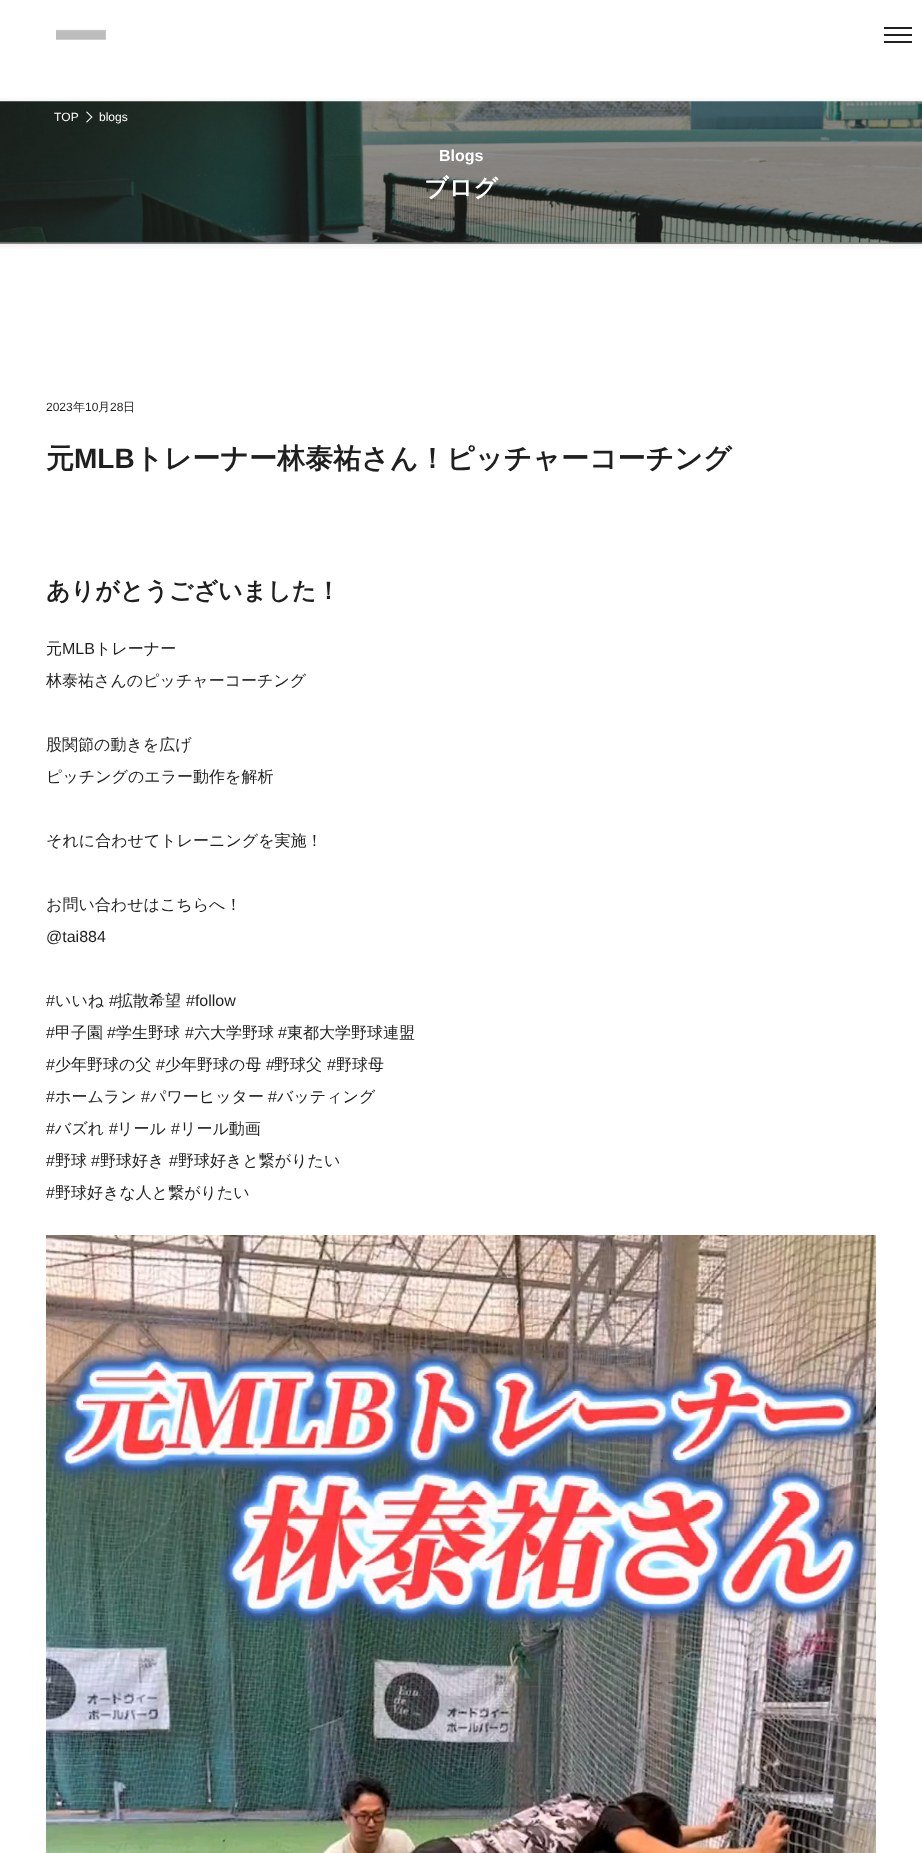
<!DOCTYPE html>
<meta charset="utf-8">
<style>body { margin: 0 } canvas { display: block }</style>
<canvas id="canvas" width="922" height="1853"></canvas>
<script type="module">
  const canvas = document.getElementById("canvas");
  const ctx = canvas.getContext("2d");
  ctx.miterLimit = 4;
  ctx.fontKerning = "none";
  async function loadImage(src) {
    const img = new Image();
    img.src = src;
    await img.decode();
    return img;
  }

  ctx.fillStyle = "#ffffff";
  ctx.fillRect(0, 0, 922, 1853);
  ctx.drawImage(await loadImage("img1.png"), 56, 29, 50, 11);
  ctx.fillStyle = "#1f1f1f";
  ctx.fillRect(884, 27, 28, 2);
  ctx.fillRect(884, 34, 28, 2);
  ctx.fillRect(884, 41, 28, 2);
  ctx.drawImage(await loadImage("img2.png"), 0, 98, 922, 151);
  ctx.font = "12px Liberation Sans";
  ctx.fillStyle = "#ffffff";
  ctx.fillText("TOP", 54, 121);
  ctx.beginPath();
  ctx.moveTo(87, 111.5);
  ctx.lineTo(92.5, 117);
  ctx.lineTo(91.5, 117.5);
  ctx.lineTo(86, 112);
  ctx.closePath();
  ctx.fill();
  ctx.beginPath();
  ctx.moveTo(91.5, 116.5);
  ctx.lineTo(92.5, 117);
  ctx.lineTo(87, 122.5);
  ctx.lineTo(86, 122);
  ctx.closePath();
  ctx.fill();
  ctx.fillText("blogs", 99, 121);
  ctx.font = "bold 16px Liberation Sans";
  ctx.fillText("Blogs", 439, 161);
  ctx.font = "bold 24px WenQuanYi Zen Hei";
  ctx.fillText("ブログ", 424, 196);
  ctx.font = "12px Liberation Sans";
  ctx.fillStyle = "#1f1f1f";
  ctx.fillText("2023", 46, 411);
  ctx.font = "500 12px WenQuanYi Zen Hei";
  ctx.fillText("年", 73, 411);
  ctx.font = "12px Liberation Sans";
  ctx.fillText("10", 85, 411);
  ctx.font = "500 12px WenQuanYi Zen Hei";
  ctx.fillText("月", 98, 411);
  ctx.font = "12px Liberation Sans";
  ctx.fillText("28", 110, 411);
  ctx.font = "500 12px WenQuanYi Zen Hei";
  ctx.fillText("日", 123, 411);
  ctx.font = "bold 28px WenQuanYi Zen Hei";
  ctx.fillText("元", 46, 468);
  ctx.font = "bold 28px Liberation Sans";
  ctx.fillText("MLB", 74, 468);
  ctx.font = "bold 28px WenQuanYi Zen Hei";
  ctx.fillText("トレーナー林泰祐さん！ピッチャーコーチング", 135, 468);
  ctx.font = "bold 24px WenQuanYi Zen Hei";
  ctx.fillText("ありがとうございました！", 46, 599);
  ctx.font = "500 16px WenQuanYi Zen Hei";
  ctx.fillText("元", 46, 654);
  ctx.font = "16px Liberation Sans";
  ctx.fillText("MLB", 62, 654);
  ctx.font = "500 16px WenQuanYi Zen Hei";
  ctx.fillText("トレーナー", 95, 654);
  ctx.fillText("林泰祐さんのピッチャーコーチング", 46, 686);
  ctx.fillText("股関節の動きを広げ", 46, 750);
  ctx.fillText("ピッチングのエラー動作を解析", 46, 782);
  ctx.fillText("それに合わせてトレーニングを実施！", 46, 846);
  ctx.fillText("お問い合わせはこちらへ！", 46, 910);
  ctx.font = "16px Liberation Sans";
  ctx.fillText("@tai884 ", 46, 942);
  ctx.fillText("#", 46, 1006);
  ctx.font = "500 16px WenQuanYi Zen Hei";
  ctx.fillText("いいね", 55, 1006);
  ctx.font = "16px Liberation Sans";
  ctx.fillText("#", 109, 1006);
  ctx.font = "500 16px WenQuanYi Zen Hei";
  ctx.fillText("拡散希望", 117, 1006);
  ctx.font = "16px Liberation Sans";
  ctx.fillText("#follow", 186, 1006);
  ctx.fillText("#", 46, 1038);
  ctx.font = "500 16px WenQuanYi Zen Hei";
  ctx.fillText("甲子園", 55, 1038);
  ctx.font = "16px Liberation Sans";
  ctx.fillText("#", 107, 1038);
  ctx.font = "500 16px WenQuanYi Zen Hei";
  ctx.fillText("学生野球", 116, 1038);
  ctx.font = "16px Liberation Sans";
  ctx.fillText("#", 185, 1038);
  ctx.font = "500 16px WenQuanYi Zen Hei";
  ctx.fillText("六大学野球", 194, 1038);
  ctx.font = "16px Liberation Sans";
  ctx.fillText("#", 278, 1038);
  ctx.font = "500 16px WenQuanYi Zen Hei";
  ctx.fillText("東都大学野球連盟", 287, 1038);
  ctx.font = "16px Liberation Sans";
  ctx.fillText("#", 46, 1070);
  ctx.font = "500 16px WenQuanYi Zen Hei";
  ctx.fillText("少年野球の父", 55, 1070);
  ctx.font = "16px Liberation Sans";
  ctx.fillText("#", 156, 1070);
  ctx.font = "500 16px WenQuanYi Zen Hei";
  ctx.fillText("少年野球の母", 165, 1070);
  ctx.font = "16px Liberation Sans";
  ctx.fillText("#", 266, 1070);
  ctx.font = "500 16px WenQuanYi Zen Hei";
  ctx.fillText("野球父", 274, 1070);
  ctx.font = "16px Liberation Sans";
  ctx.fillText("#", 327, 1070);
  ctx.font = "500 16px WenQuanYi Zen Hei";
  ctx.fillText("野球母", 336, 1070);
  ctx.font = "16px Liberation Sans";
  ctx.fillText("#", 46, 1102);
  ctx.font = "500 16px WenQuanYi Zen Hei";
  ctx.fillText("ホームラン", 55, 1102);
  ctx.font = "16px Liberation Sans";
  ctx.fillText("#", 141, 1102);
  ctx.font = "500 16px WenQuanYi Zen Hei";
  ctx.fillText("パワーヒッター", 150, 1102);
  ctx.font = "16px Liberation Sans";
  ctx.fillText("#", 268, 1102);
  ctx.font = "500 16px WenQuanYi Zen Hei";
  ctx.fillText("バッティング", 277, 1102);
  ctx.font = "16px Liberation Sans";
  ctx.fillText("#", 46, 1134);
  ctx.font = "500 16px WenQuanYi Zen Hei";
  ctx.fillText("バズれ", 55, 1134);
  ctx.font = "16px Liberation Sans";
  ctx.fillText("#", 109, 1134);
  ctx.font = "500 16px WenQuanYi Zen Hei";
  ctx.fillText("リール", 117, 1134);
  ctx.font = "16px Liberation Sans";
  ctx.fillText("#", 171, 1134);
  ctx.font = "500 16px WenQuanYi Zen Hei";
  ctx.fillText("リール動画", 180, 1134);
  ctx.font = "16px Liberation Sans";
  ctx.fillText("#", 46, 1166);
  ctx.font = "500 16px WenQuanYi Zen Hei";
  ctx.fillText("野球", 55, 1166);
  ctx.font = "16px Liberation Sans";
  ctx.fillText("#", 91, 1166);
  ctx.font = "500 16px WenQuanYi Zen Hei";
  ctx.fillText("野球好き", 100, 1166);
  ctx.font = "16px Liberation Sans";
  ctx.fillText("#", 169, 1166);
  ctx.font = "500 16px WenQuanYi Zen Hei";
  ctx.fillText("野球好きと繋がりたい", 178, 1166);
  ctx.font = "16px Liberation Sans";
  ctx.fillText("#", 46, 1198);
  ctx.font = "500 16px WenQuanYi Zen Hei";
  ctx.fillText("野球好きな人と繋がりたい", 55, 1198);
  ctx.drawImage(await loadImage("img3.png"), 46, 1235, 830, 618);
</script>
